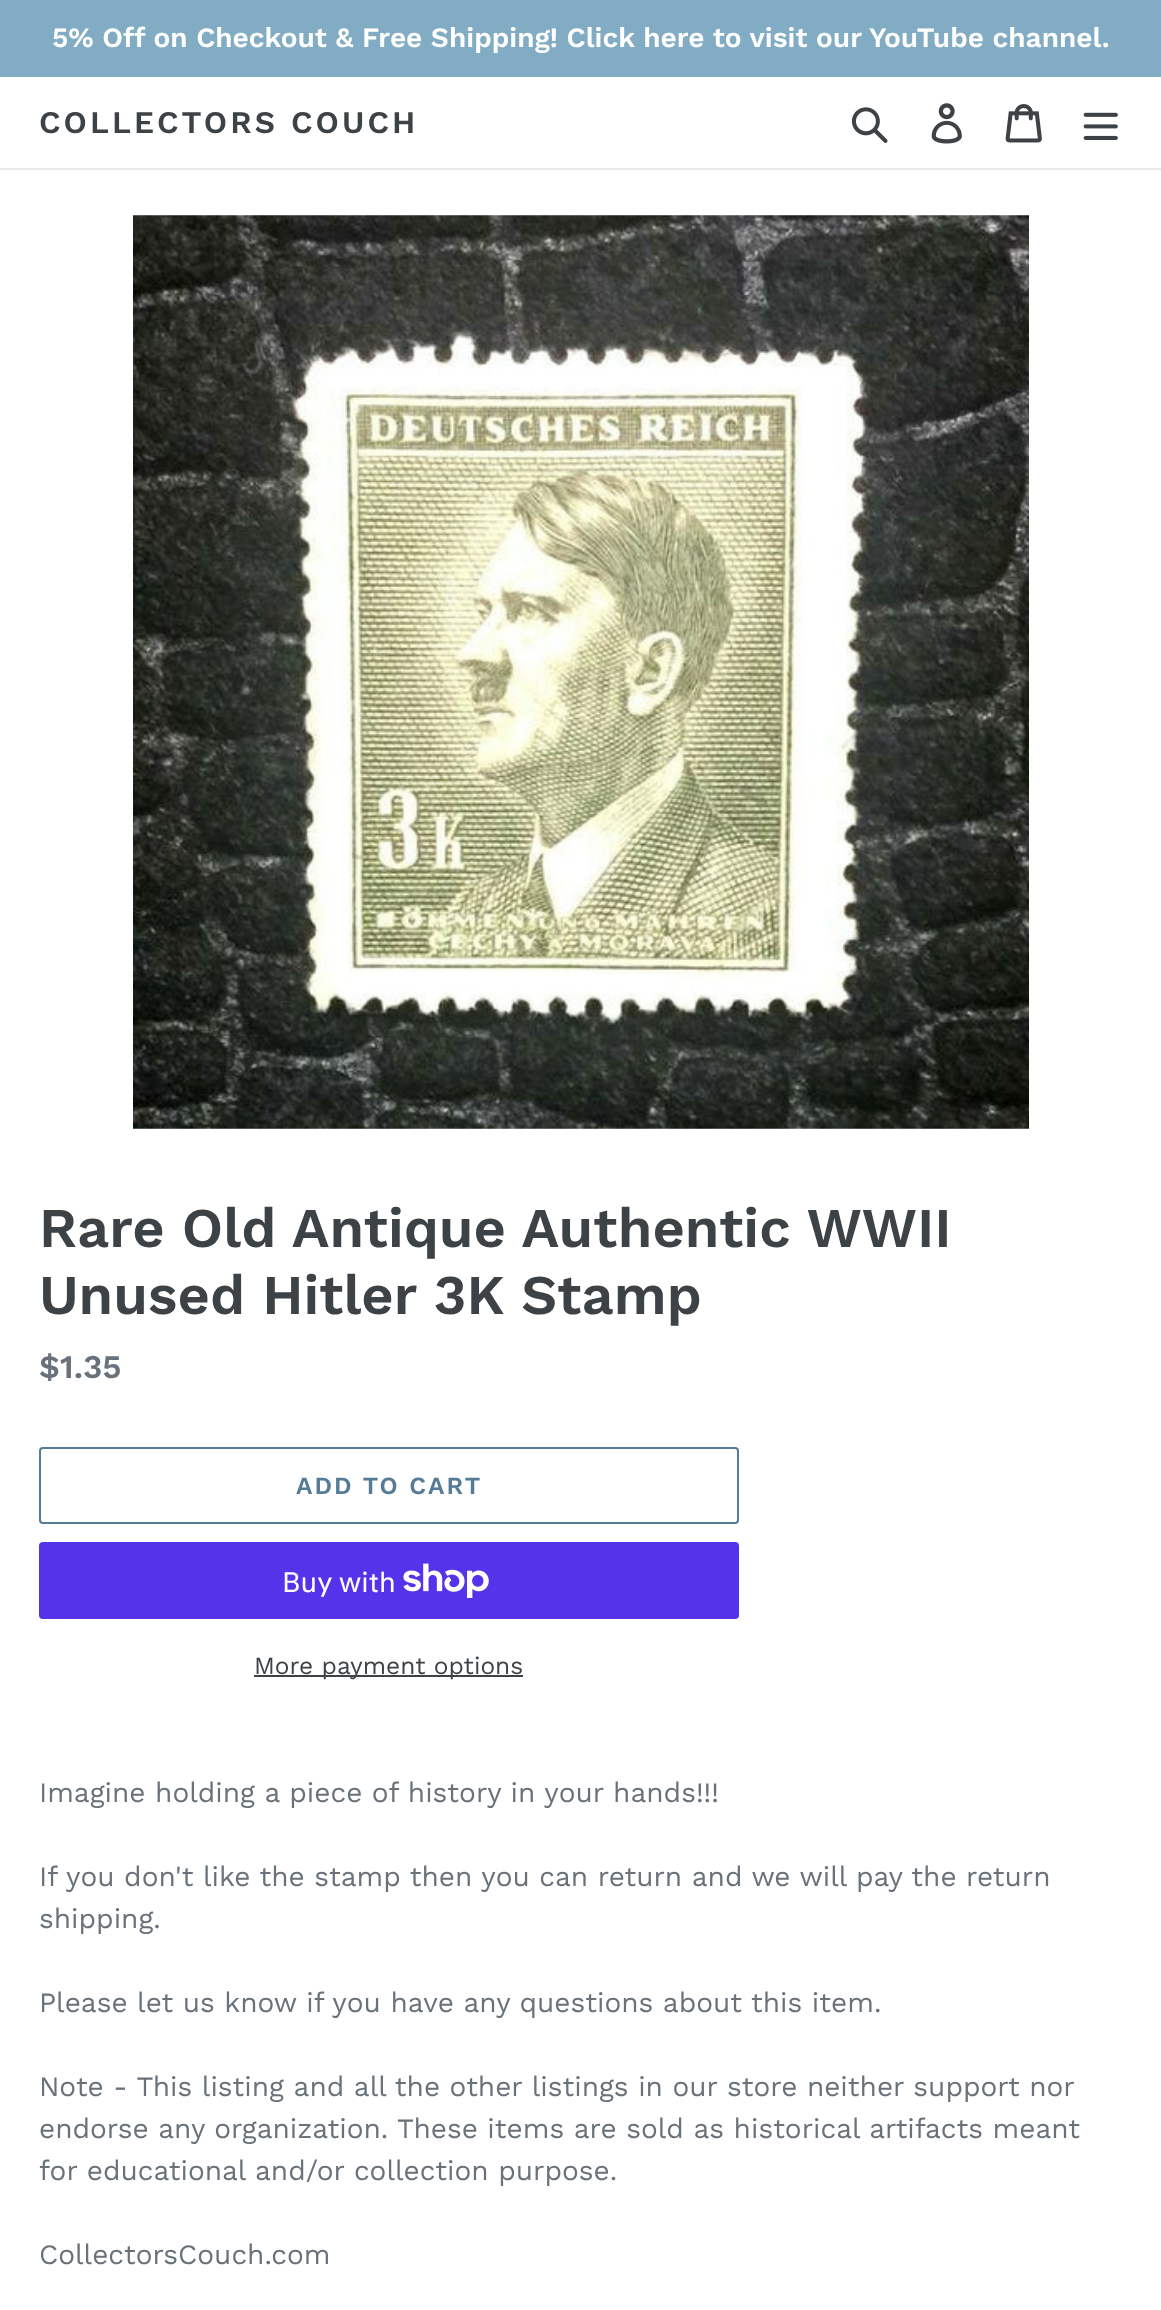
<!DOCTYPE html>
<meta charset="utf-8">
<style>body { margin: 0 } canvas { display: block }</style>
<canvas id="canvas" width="1161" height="2310"></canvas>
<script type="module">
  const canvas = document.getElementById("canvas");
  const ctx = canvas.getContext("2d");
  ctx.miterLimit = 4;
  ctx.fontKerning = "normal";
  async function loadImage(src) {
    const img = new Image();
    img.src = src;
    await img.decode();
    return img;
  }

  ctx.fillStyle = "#ffffff";
  ctx.fillRect(0, 0, 1161, 2310);
  ctx.fillStyle = "#82acc3";
  ctx.fillRect(0, 0, 1161, 77);
  ctx.font = "600 28px Work Sans";
  ctx.fillStyle = "#ffffff";
  ctx.fillText("5% Off on Checkout & Free Shipping! Click here to visit our YouTube channel.", 52, 47);
  ctx.fillStyle = "#e8e9eb";
  ctx.fillRect(0, 168, 1161, 2);
  ctx.letterSpacing = "3.1px";
  ctx.font = "600 31.5px Work Sans";
  ctx.fillStyle = "#3d4246";
  ctx.fillText("COLLECTORS COUCH", 39, 133);
  ctx.drawImage(await loadImage("img1.png"), 851, 107, 37, 36);
  ctx.drawImage(await loadImage("img2.png"), 931, 103, 31, 41);
  ctx.drawImage(await loadImage("img3.png"), 1005, 104, 37, 39);
  ctx.drawImage(await loadImage("img4.png"), 1083, 112, 35, 28);
  ctx.drawImage(await loadImage("img5.png"), 133, 215, 896, 914);
  ctx.letterSpacing = "0px";
  ctx.font = "600 56px Work Sans";
  ctx.fillText("Rare Old Antique Authentic WWII", 39, 1247);
  ctx.fillText("Unused Hitler 3K Stamp", 39, 1314);
  ctx.font = "600 33px Work Sans";
  ctx.fillStyle = "#69727b";
  ctx.fillText("$1.35", 39, 1378);
  ctx.beginPath();
  ctx.roundRect(40, 1448, 698, 75, 3);
  ctx.strokeStyle = "#557b97";
  ctx.lineWidth = 2;
  ctx.stroke();
  ctx.letterSpacing = "2px";
  ctx.font = "600 24.5px Work Sans";
  ctx.fillStyle = "#557b97";
  ctx.fillText("ADD TO CART", 296, 1494);
  ctx.fillStyle = "#5433eb";
  ctx.beginPath();
  ctx.roundRect(39, 1542, 700, 77, 4);
  ctx.fill();
  ctx.letterSpacing = "0px";
  ctx.font = "28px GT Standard";
  ctx.fillStyle = "#ffffff";
  ctx.fillText("Buy with", 282, 1592);
  ctx.drawImage(await loadImage("img6.png"), 403, 1563, 86, 35);
  ctx.fillStyle = "#3d4246";
  ctx.fillRect(254, 1675, 269, 2);
  ctx.font = "24.5px Work Sans";
  ctx.fillText("More payment options", 254, 1674);
  ctx.font = "28px Work Sans";
  ctx.fillStyle = "#69727b";
  ctx.fillText("Imagine holding a piece of history in your hands!!!", 39, 1802);
  ctx.fillText("If you don't like the stamp then you can return and we will pay the return", 39, 1886);
  ctx.fillText("shipping.", 39, 1928);
  ctx.fillText("Please let us know if you have any questions about this item.", 39, 2012);
  ctx.fillText("Note - This listing and all the other listings in our store neither support nor", 39, 2096);
  ctx.fillText("endorse any organization. These items are sold as historical artifacts meant", 39, 2138);
  ctx.fillText("for educational and/or collection purpose.", 39, 2180);
  ctx.fillText("CollectorsCouch.com", 39, 2264);
</script>
